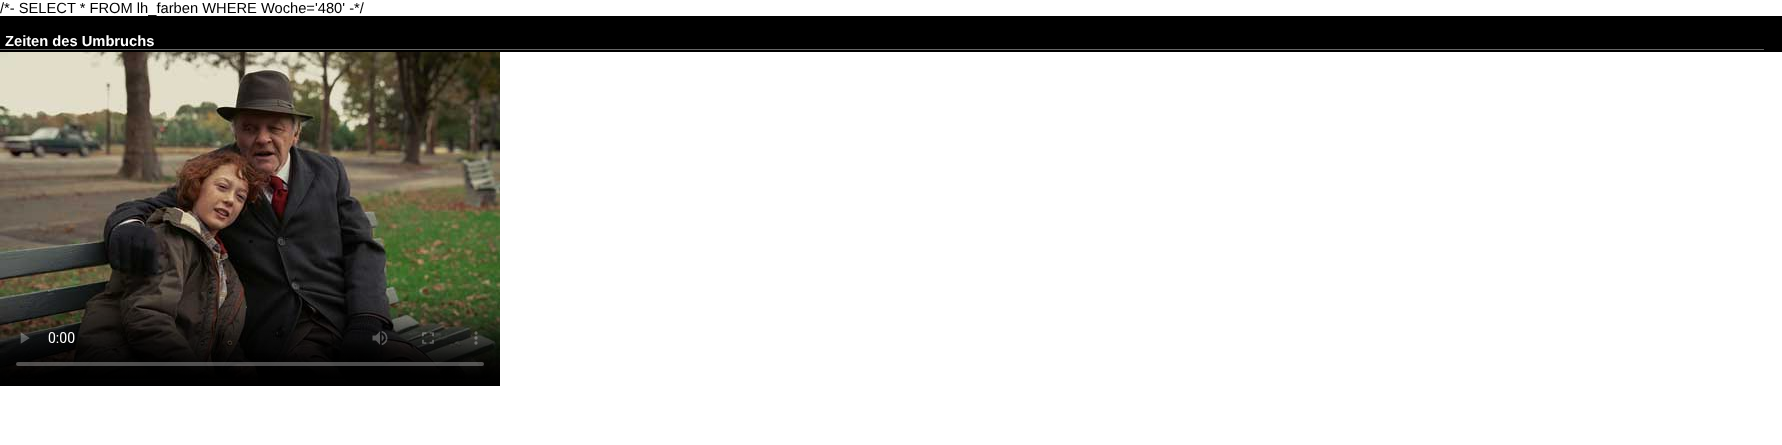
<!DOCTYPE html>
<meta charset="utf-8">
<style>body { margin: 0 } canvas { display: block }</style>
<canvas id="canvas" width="1782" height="445"></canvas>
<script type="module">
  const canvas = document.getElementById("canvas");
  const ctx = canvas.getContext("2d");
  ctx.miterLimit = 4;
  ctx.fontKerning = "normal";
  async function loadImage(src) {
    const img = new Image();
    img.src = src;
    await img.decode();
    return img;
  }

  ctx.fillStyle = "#ffffff";
  ctx.fillRect(0, 0, 1782, 445);
  ctx.font = "14.7px Liberation Sans";
  ctx.fillStyle = "#000000";
  ctx.fillText("/*- SELECT * FROM lh_farben WHERE Woche='480' -*/", 0, 13);
  ctx.fillRect(0, 16, 1782, 36);
  ctx.fillStyle = "#666666";
  ctx.fillRect(0, 49, 1764, 1);
  ctx.font = "bold 14.7px Liberation Sans";
  ctx.fillStyle = "#ffffff";
  ctx.fillText("Zeiten des Umbruchs", 5, 46);
  ctx.drawImage(await loadImage("img1.png"), 0, 52, 500, 334);
</script>
